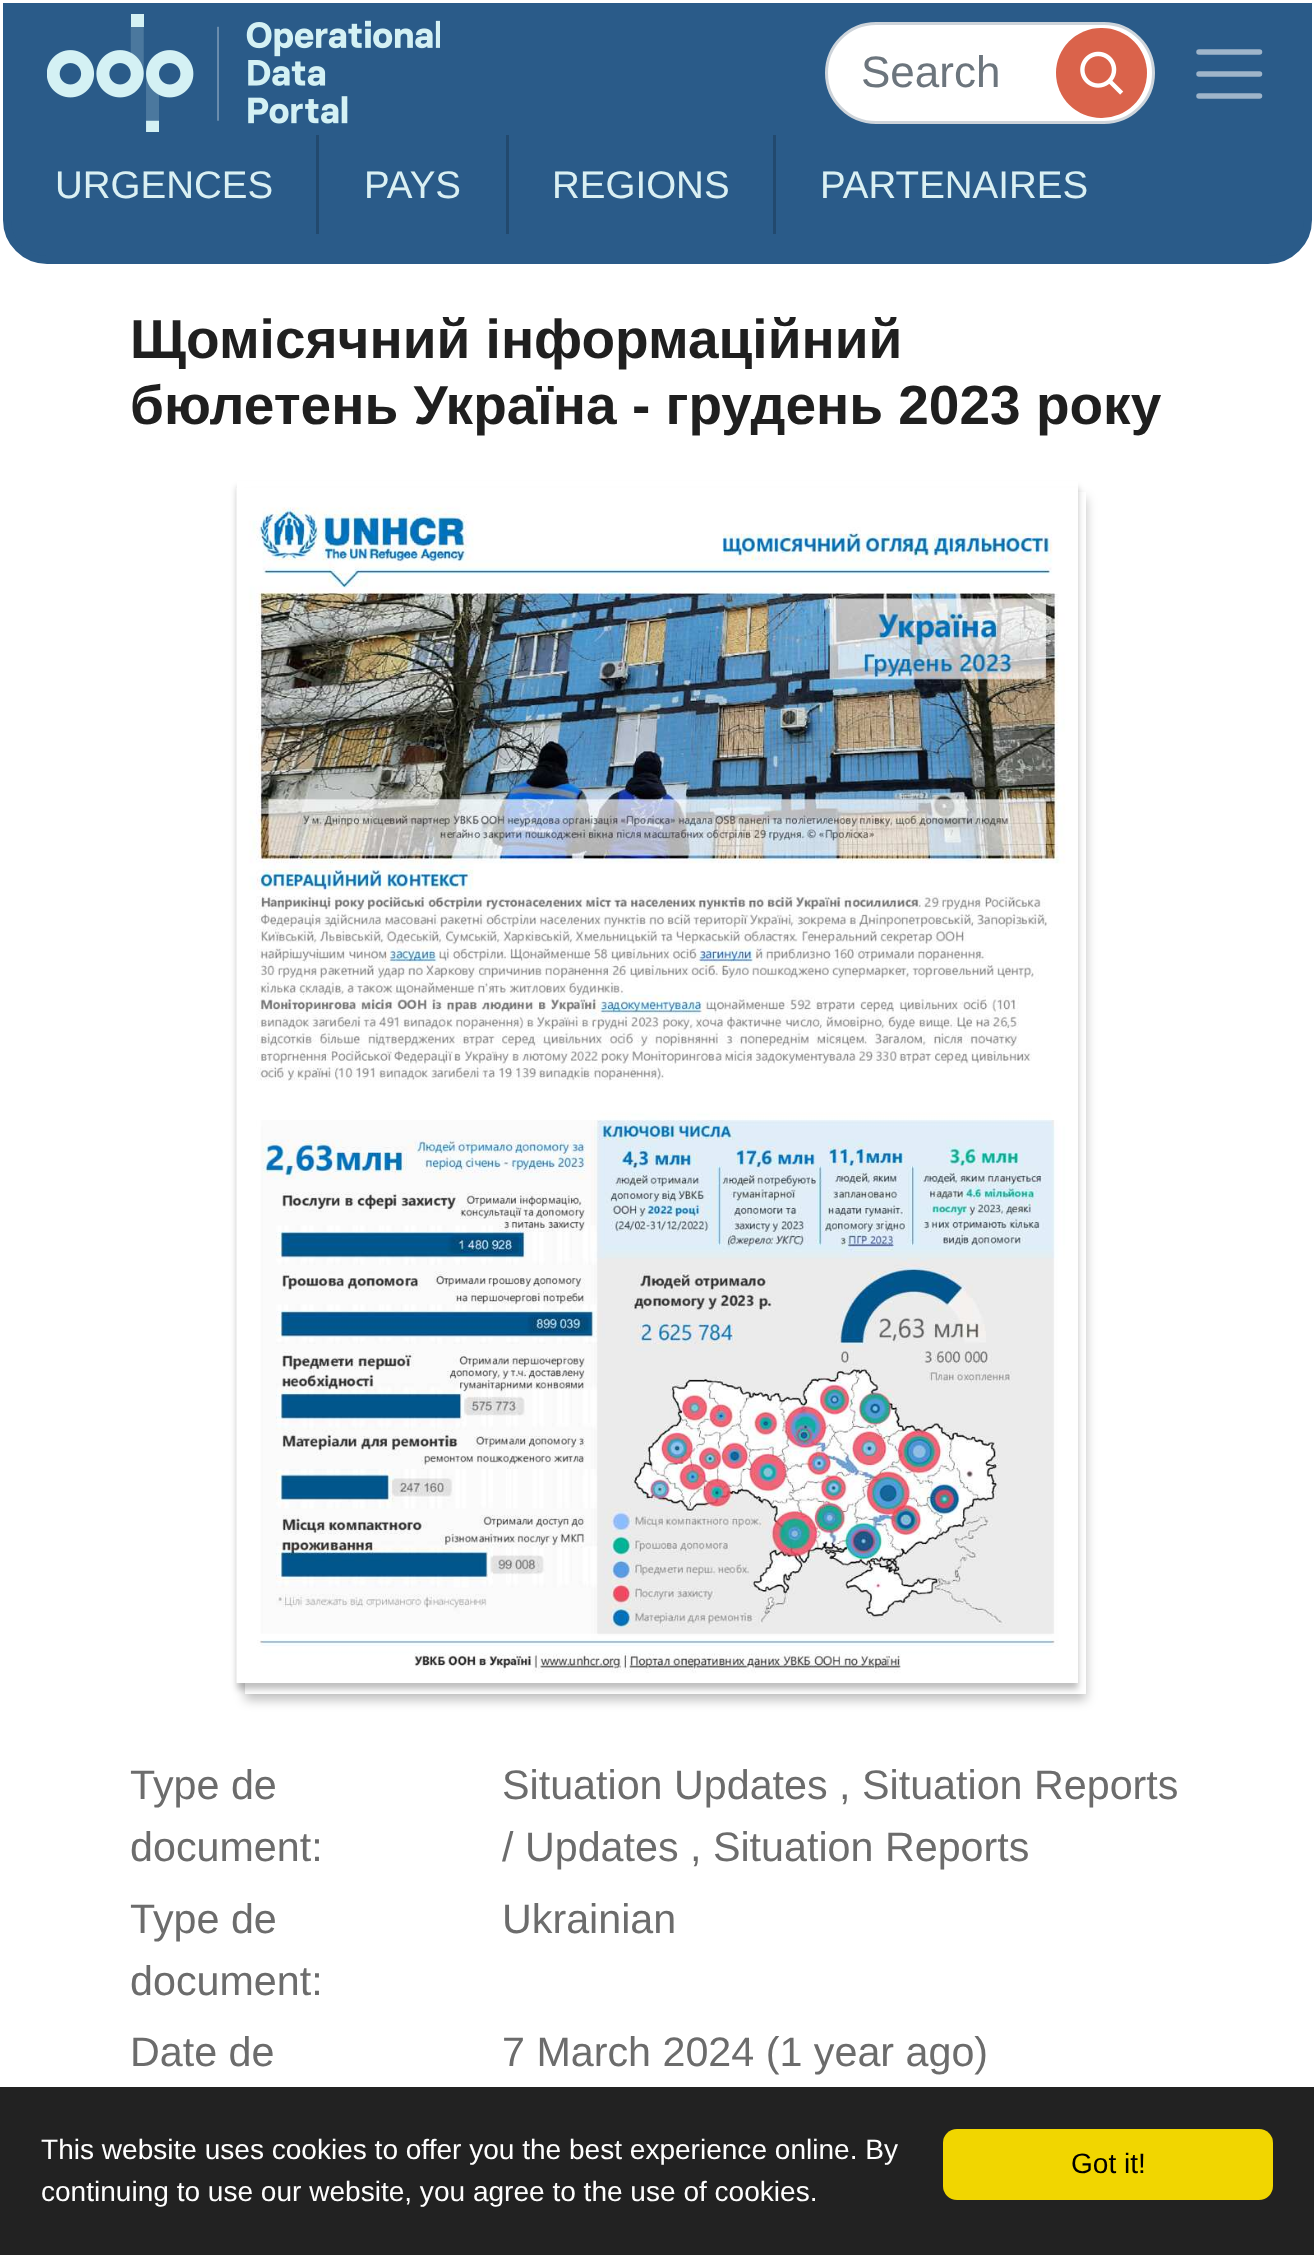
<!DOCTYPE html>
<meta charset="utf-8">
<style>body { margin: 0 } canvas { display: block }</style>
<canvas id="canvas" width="1314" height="2267"></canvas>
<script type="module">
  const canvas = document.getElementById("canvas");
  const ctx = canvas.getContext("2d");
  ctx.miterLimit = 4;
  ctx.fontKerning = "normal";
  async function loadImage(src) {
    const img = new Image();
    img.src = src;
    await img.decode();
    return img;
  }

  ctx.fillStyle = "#ffffff";
  ctx.fillRect(0, 0, 1314, 2267);
  ctx.fillStyle = "#2a5b89";
  ctx.beginPath();
  ctx.roundRect(7, 7, 1301, 253, [0, 0, 40, 40]);
  ctx.fill();
  ctx.strokeStyle = "#2a5b89";
  ctx.lineWidth = 8;
  ctx.stroke();
  ctx.drawImage(await loadImage("img1.png"), 47, 14, 393, 118);
  ctx.fillStyle = "#ffffff";
  ctx.beginPath();
  ctx.roundRect(826.5, 23.5, 327, 99, 49.5);
  ctx.fill();
  ctx.strokeStyle = "#ced4da";
  ctx.lineWidth = 3;
  ctx.stroke();
  ctx.font = "44px Liberation Sans";
  ctx.fillStyle = "#6c757d";
  ctx.fillText("Search", 861, 87);
  ctx.fillStyle = "#da634b";
  ctx.beginPath();
  ctx.roundRect(1056, 28, 91, 90, 45);
  ctx.fill();
  ctx.drawImage(await loadImage("img2.png"), 1080, 51, 44, 44);
  ctx.beginPath();
  ctx.moveTo(1199, 52);
  ctx.lineTo(1259.5, 52);
  ctx.moveTo(1199, 74);
  ctx.lineTo(1259.5, 74);
  ctx.moveTo(1199, 96);
  ctx.lineTo(1259.5, 96);
  ctx.strokeStyle = "#9fb5ca";
  ctx.lineWidth = 5.5;
  ctx.lineCap = "round";
  ctx.stroke();
  ctx.font = "38.5px Liberation Sans";
  ctx.fillStyle = "#daf0f3";
  ctx.fillText("URGENCES", 55, 198);
  ctx.fillStyle = "#22496e";
  ctx.fillRect(316, 135, 3, 99);
  ctx.fillStyle = "#daf0f3";
  ctx.fillText("PAYS", 364, 198);
  ctx.fillStyle = "#22496e";
  ctx.fillRect(506, 135, 3, 99);
  ctx.fillStyle = "#daf0f3";
  ctx.fillText("REGIONS", 552, 198);
  ctx.fillStyle = "#22496e";
  ctx.fillRect(773, 135, 3, 99);
  ctx.fillStyle = "#daf0f3";
  ctx.fillText("PARTENAIRES", 820, 198);
  ctx.font = "bold 55px Liberation Sans";
  ctx.fillStyle = "#1f1f1f";
  ctx.fillText("Щомісячний інформаційний", 130, 358);
  ctx.fillText("бюлетень Україна - грудень 2023 року", 130, 424);
  ctx.fillStyle = "rgba(0, 0, 0, 0.25)";
  ctx.filter = "blur(5.5px)";
  ctx.beginPath();
  ctx.rect(245, 498, 841, 1202);
  ctx.fill();
  ctx.filter = "none";
  ctx.fillStyle = "#ffffff";
  ctx.fillRect(245, 492, 841, 1202);
  ctx.save();
  ctx.beginPath();
  ctx.moveTo(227, 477);
  ctx.lineTo(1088, 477);
  ctx.lineTo(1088, 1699);
  ctx.lineTo(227, 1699);
  ctx.closePath();
  ctx.moveTo(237, 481);
  ctx.lineTo(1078, 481);
  ctx.lineTo(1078, 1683);
  ctx.lineTo(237, 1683);
  ctx.closePath();
  ctx.clip("evenodd");
  ctx.fillStyle = "rgba(0, 0, 0, 0.25)";
  ctx.filter = "blur(3px)";
  ctx.beginPath();
  ctx.rect(237, 487, 841, 1202);
  ctx.fill();
  ctx.filter = "none";
  ctx.restore();
  ctx.drawImage(await loadImage("img3.png"), 236, 488, 842, 1195);
  ctx.font = "41.25px Liberation Sans";
  ctx.fillStyle = "#6c6c6c";
  ctx.fillText("Type de", 130, 1799);
  ctx.fillText("document:", 130, 1861);
  ctx.fillText("Situation Updates , Situation Reports", 502, 1799);
  ctx.fillText("/ Updates , Situation Reports", 502, 1861);
  ctx.fillText("Type de", 130, 1933);
  ctx.fillText("document:", 130, 1995);
  ctx.fillText("Ukrainian", 502, 1933);
  ctx.fillText("Date de", 130, 2066);
  ctx.fillText("7 March 2024 (1 year ago)", 502, 2066);
  ctx.fillStyle = "#222222";
  ctx.fillRect(0, 2087, 1314, 168);
  ctx.font = "28.05px Liberation Sans";
  ctx.fillStyle = "#ffffff";
  ctx.fillText("This website uses cookies to offer you the best experience online. By", 41, 2159);
  ctx.fillText("continuing to use our website, you agree to the use of cookies.", 41, 2201);
  ctx.fillStyle = "#f1d600";
  ctx.beginPath();
  ctx.roundRect(943, 2129, 330, 71, 14);
  ctx.fill();
  ctx.fillStyle = "#000000";
  ctx.fillText("Got it!", 1071, 2173);
</script>
